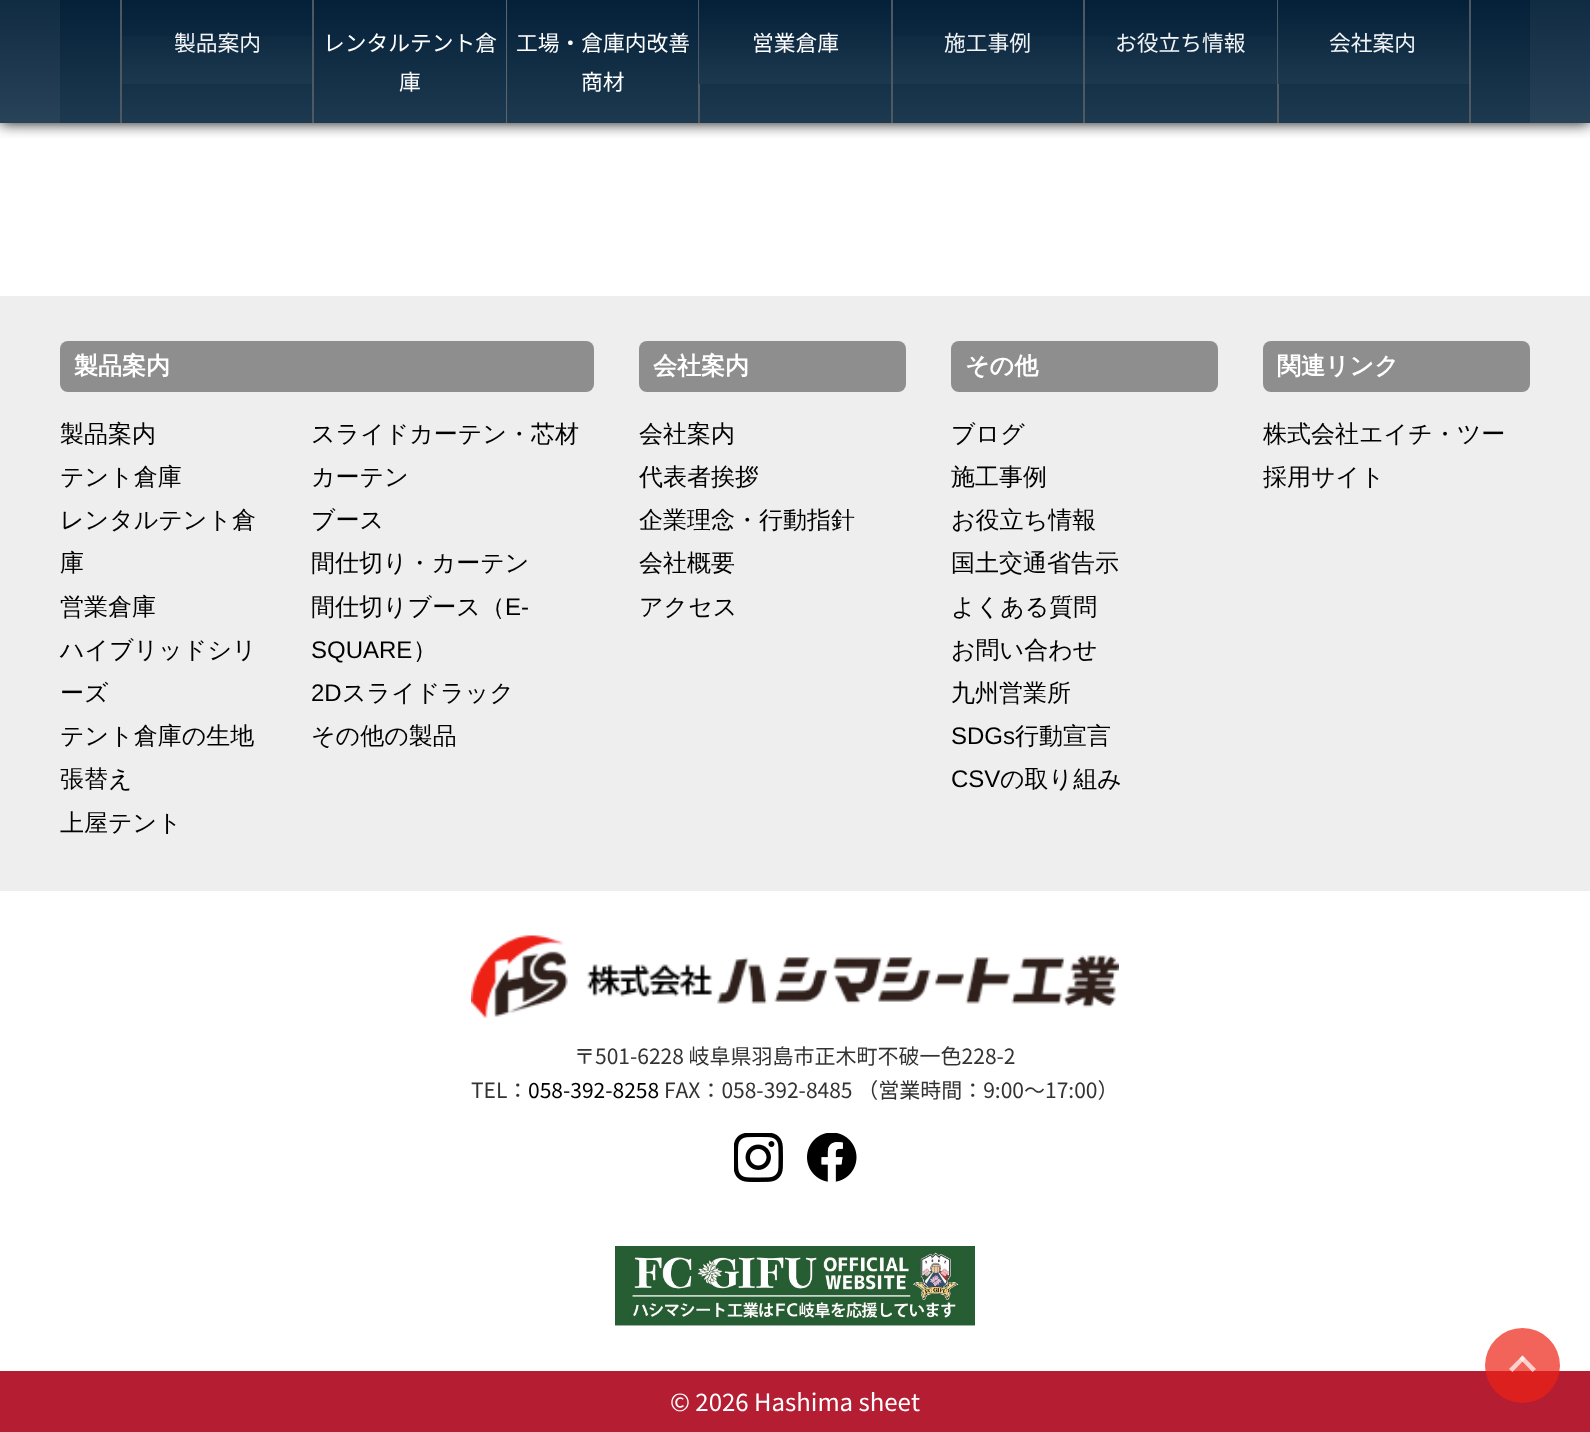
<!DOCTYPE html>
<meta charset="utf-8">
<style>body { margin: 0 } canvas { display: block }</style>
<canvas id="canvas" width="1590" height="1432"></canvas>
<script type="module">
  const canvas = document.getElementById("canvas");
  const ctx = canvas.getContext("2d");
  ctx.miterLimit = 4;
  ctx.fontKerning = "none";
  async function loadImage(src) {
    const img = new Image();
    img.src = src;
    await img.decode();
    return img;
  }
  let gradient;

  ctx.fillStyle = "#ffffff";
  ctx.fillRect(0, 0, 1590, 1432);
  ctx.strokeStyle = "#f5f5f5";
  ctx.lineWidth = 2;
  ctx.strokeRect(958, -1, 571, 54);
  ctx.fillStyle = "#f2f2f2";
  ctx.beginPath();
  ctx.moveTo(1492.5, -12);
  ctx.lineTo(1505, 1);
  ctx.lineTo(1502, 4);
  ctx.lineTo(1489.5, -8.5);
  ctx.closePath();
  ctx.fill();
  ctx.beginPath();
  ctx.moveTo(1502, -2.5);
  ctx.lineTo(1505, 1);
  ctx.lineTo(1492.5, 13.5);
  ctx.lineTo(1489.5, 10.5);
  ctx.closePath();
  ctx.fill();
  ctx.save();
  ctx.beginPath();
  ctx.rect(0, 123, 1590, 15);
  ctx.clip();
  ctx.fillStyle = "#0d0d0d";
  ctx.filter = "blur(7.5px)";
  ctx.beginPath();
  ctx.rect(0, 0, 1590, 123);
  ctx.fill();
  ctx.filter = "none";
  ctx.restore();
  gradient = ctx.createLinearGradient(795, 123, 795, 0);
  gradient.addColorStop(0, "rgba(29, 57, 80, 0.95)");
  gradient.addColorStop(1, "rgba(3, 32, 56, 0.95)");
  ctx.fillStyle = gradient;
  ctx.fillRect(0, 0, 1590, 123);
  ctx.fillRect(60, 0, 1470, 123);
  ctx.fillStyle = "rgba(81, 92, 100, 0.95)";
  ctx.fillRect(312, 0, 2, 123);
  ctx.fillRect(120, 0, 2, 123);
  gradient = ctx.createLinearGradient(217, 84, 217, 0);
  gradient.addColorStop(0, "rgba(29, 57, 80, 0.95)");
  gradient.addColorStop(1, "rgba(3, 32, 56, 0.95)");
  ctx.fillStyle = gradient;
  ctx.fillRect(122, 36, 190, 48);
  ctx.font = "21.75px Noto Sans JP";
  ctx.fillStyle = "#f3f4f6";
  ctx.fillText("製品案内", 174, 51);
  ctx.fillStyle = "#5a646c";
  ctx.fillRect(506, 0, 2, 123);
  ctx.fillStyle = "#ffffff";
  ctx.fillText("レンタルテント倉", 323, 51);
  ctx.fillText("庫", 399, 90);
  ctx.fillStyle = "rgba(81, 92, 100, 0.95)";
  ctx.fillRect(698, 0, 2, 123);
  gradient = ctx.createLinearGradient(602, 123, 602, 0);
  gradient.addColorStop(0, "rgba(29, 57, 80, 0.95)");
  gradient.addColorStop(1, "rgba(3, 32, 56, 0.95)");
  ctx.fillStyle = gradient;
  ctx.fillRect(507, 0, 1, 123);
  ctx.fillStyle = "#ffffff";
  ctx.fillText("工場・倉庫内改善", 516, 51);
  ctx.fillText("商材", 581, 90);
  ctx.fillStyle = "rgba(81, 92, 100, 0.95)";
  ctx.fillRect(891, 0, 2, 123);
  gradient = ctx.createLinearGradient(795, 84, 795, 0);
  gradient.addColorStop(0, "rgba(29, 57, 80, 0.95)");
  gradient.addColorStop(1, "rgba(3, 32, 56, 0.95)");
  ctx.fillStyle = gradient;
  ctx.fillRect(699, 0, 192, 84);
  ctx.fillStyle = "#ffffff";
  ctx.fillText("営業倉庫", 752, 51);
  ctx.fillStyle = "rgba(81, 92, 100, 0.95)";
  ctx.fillRect(1083, 0, 2, 123);
  gradient = ctx.createLinearGradient(988, 84, 988, 0);
  gradient.addColorStop(0, "rgba(29, 57, 80, 0.95)");
  gradient.addColorStop(1, "rgba(3, 32, 56, 0.95)");
  ctx.fillStyle = gradient;
  ctx.fillRect(893, 36, 190, 48);
  ctx.fillStyle = "#f3f4f6";
  ctx.fillText("施工事例", 944, 51);
  ctx.fillStyle = "rgba(81, 92, 100, 0.95)";
  ctx.fillRect(1277, 0, 2, 123);
  gradient = ctx.createLinearGradient(1181, 84, 1181, 0);
  gradient.addColorStop(0, "rgba(29, 57, 80, 0.95)");
  gradient.addColorStop(1, "rgba(3, 32, 56, 0.95)");
  ctx.fillStyle = gradient;
  ctx.fillRect(1085, 36, 192, 48);
  ctx.fillStyle = "#f3f4f6";
  ctx.fillText("お役立ち情報", 1115, 51);
  ctx.fillStyle = "rgba(81, 92, 100, 0.95)";
  ctx.fillRect(1469, 0, 2, 123);
  gradient = ctx.createLinearGradient(1373, 84, 1373, 0);
  gradient.addColorStop(0, "rgba(29, 57, 80, 0.95)");
  gradient.addColorStop(1, "rgba(3, 32, 56, 0.95)");
  ctx.fillStyle = gradient;
  ctx.fillRect(1278, 0, 191, 84);
  ctx.fillStyle = "#f3f4f6";
  ctx.fillText("会社案内", 1329, 51);
  ctx.fillStyle = "#eeeeee";
  ctx.fillRect(0, 296, 1590, 595);
  ctx.fillStyle = "#8e8e8e";
  ctx.beginPath();
  ctx.roundRect(60, 341, 534, 51, 8);
  ctx.fill();
  ctx.font = "bold 24px WenQuanYi Zen Hei";
  ctx.fillStyle = "#ffffff";
  ctx.fillText("製品案内", 74, 374);
  ctx.font = "500 24px WenQuanYi Zen Hei";
  ctx.fillStyle = "#000000";
  ctx.fillText("製品案内", 60, 442);
  ctx.fillText("テント倉庫", 60, 485);
  ctx.fillText("レンタルテント倉", 60, 528);
  ctx.fillText("庫", 60, 571);
  ctx.fillText("営業倉庫", 60, 615);
  ctx.fillText("ハイブリッドシリ", 60, 658);
  ctx.fillText("ーズ", 60, 701);
  ctx.fillText("テント倉庫の生地", 60, 744);
  ctx.fillText("張替え", 60, 787);
  ctx.fillText("上屋テント", 60, 831);
  ctx.fillText("スライドカーテン・芯材", 311, 442);
  ctx.fillText("カーテン", 311, 485);
  ctx.fillText("ブース", 311, 528);
  ctx.fillText("間仕切り・カーテン", 311, 571);
  ctx.fillText("間仕切りブース（", 311, 615);
  ctx.font = "24px Liberation Sans";
  ctx.fillText("E-", 505, 615);
  ctx.fillText("SQUARE", 311, 658);
  ctx.font = "500 24px WenQuanYi Zen Hei";
  ctx.fillText("）", 413, 658);
  ctx.font = "24px Liberation Sans";
  ctx.fillText("2D", 311, 701);
  ctx.font = "500 24px WenQuanYi Zen Hei";
  ctx.fillText("スライドラック", 342, 701);
  ctx.fillText("その他の製品", 311, 744);
  ctx.fillStyle = "#8e8e8e";
  ctx.beginPath();
  ctx.roundRect(639, 341, 267, 51, 8);
  ctx.fill();
  ctx.font = "bold 24px WenQuanYi Zen Hei";
  ctx.fillStyle = "#ffffff";
  ctx.fillText("会社案内", 653, 374);
  ctx.font = "500 24px WenQuanYi Zen Hei";
  ctx.fillStyle = "#000000";
  ctx.fillText("会社案内", 639, 442);
  ctx.fillText("代表者挨拶", 639, 485);
  ctx.fillText("企業理念・行動指針", 639, 528);
  ctx.fillText("会社概要", 639, 571);
  ctx.fillText("アクセス", 639, 615);
  ctx.fillStyle = "#8e8e8e";
  ctx.beginPath();
  ctx.roundRect(951, 341, 267, 51, 8);
  ctx.fill();
  ctx.font = "bold 24px WenQuanYi Zen Hei";
  ctx.fillStyle = "#ffffff";
  ctx.fillText("その他", 965, 374);
  ctx.font = "500 24px WenQuanYi Zen Hei";
  ctx.fillStyle = "#000000";
  ctx.fillText("ブログ", 951, 442);
  ctx.fillText("施工事例", 951, 485);
  ctx.fillText("お役立ち情報", 951, 528);
  ctx.fillText("国土交通省告示", 951, 571);
  ctx.fillText("よくある質問", 951, 615);
  ctx.fillText("お問い合わせ", 951, 658);
  ctx.fillText("九州営業所", 951, 701);
  ctx.font = "24px Liberation Sans";
  ctx.fillText("SDGs", 951, 744);
  ctx.font = "500 24px WenQuanYi Zen Hei";
  ctx.fillText("行動宣言", 1015, 744);
  ctx.font = "24px Liberation Sans";
  ctx.fillText("CSV", 951, 787);
  ctx.font = "500 24px WenQuanYi Zen Hei";
  ctx.fillText("の取り組み", 1000, 787);
  ctx.fillStyle = "#8e8e8e";
  ctx.beginPath();
  ctx.roundRect(1263, 341, 267, 51, 8);
  ctx.fill();
  ctx.font = "bold 24px WenQuanYi Zen Hei";
  ctx.fillStyle = "#ffffff";
  ctx.fillText("関連リンク", 1277, 374);
  ctx.font = "500 24px WenQuanYi Zen Hei";
  ctx.fillStyle = "#000000";
  ctx.fillText("株式会社エイチ・ツー", 1263, 442);
  ctx.fillText("採用サイト", 1263, 485);
  ctx.drawImage(await loadImage("img1.png"), 471, 935, 648, 83);
  ctx.font = "21px Noto Sans JP";
  ctx.fillStyle = "#333333";
  ctx.fillText("〒501-6228 岐阜県羽島市正木町不破一色228-2", 574, 1064);
  ctx.fillText("TEL：", 471, 1098);
  ctx.fillStyle = "#000000";
  ctx.fillText("058-392-8258", 528, 1098);
  ctx.fillStyle = "#333333";
  ctx.fillText("FAX：058-392-8485 （営業時間：9:00～17:00）", 664, 1098);
  ctx.drawImage(await loadImage("img2.png"), 734, 1133, 49, 49);
  ctx.drawImage(await loadImage("img3.png"), 807, 1133, 50, 49);
  ctx.drawImage(await loadImage("img4.png"), 615, 1246, 360, 80);
  ctx.fillStyle = "#b51d33";
  ctx.fillRect(0, 1371, 1590, 61);
  ctx.font = "24px Noto Sans JP";
  ctx.fillStyle = "#ffffff";
  ctx.fillText("© 2026 Hashima sheet", 670, 1411);
  ctx.fillStyle = "rgba(237, 34, 20, 0.7)";
  ctx.beginPath();
  ctx.arc(1522.5, 1365.5, 37.5, 0, Math.PI * 2);
  ctx.fill();
  ctx.fillStyle = "rgba(255, 255, 255, 0.7)";
  ctx.beginPath();
  ctx.moveTo(1509, 1369);
  ctx.lineTo(1522.5, 1355.5);
  ctx.lineTo(1525.5, 1358.5);
  ctx.lineTo(1512.5, 1372);
  ctx.closePath();
  ctx.fill();
  ctx.beginPath();
  ctx.moveTo(1519.5, 1358.5);
  ctx.lineTo(1522.5, 1355.5);
  ctx.lineTo(1536, 1369);
  ctx.lineTo(1532.5, 1372);
  ctx.closePath();
  ctx.fill();
</script>
